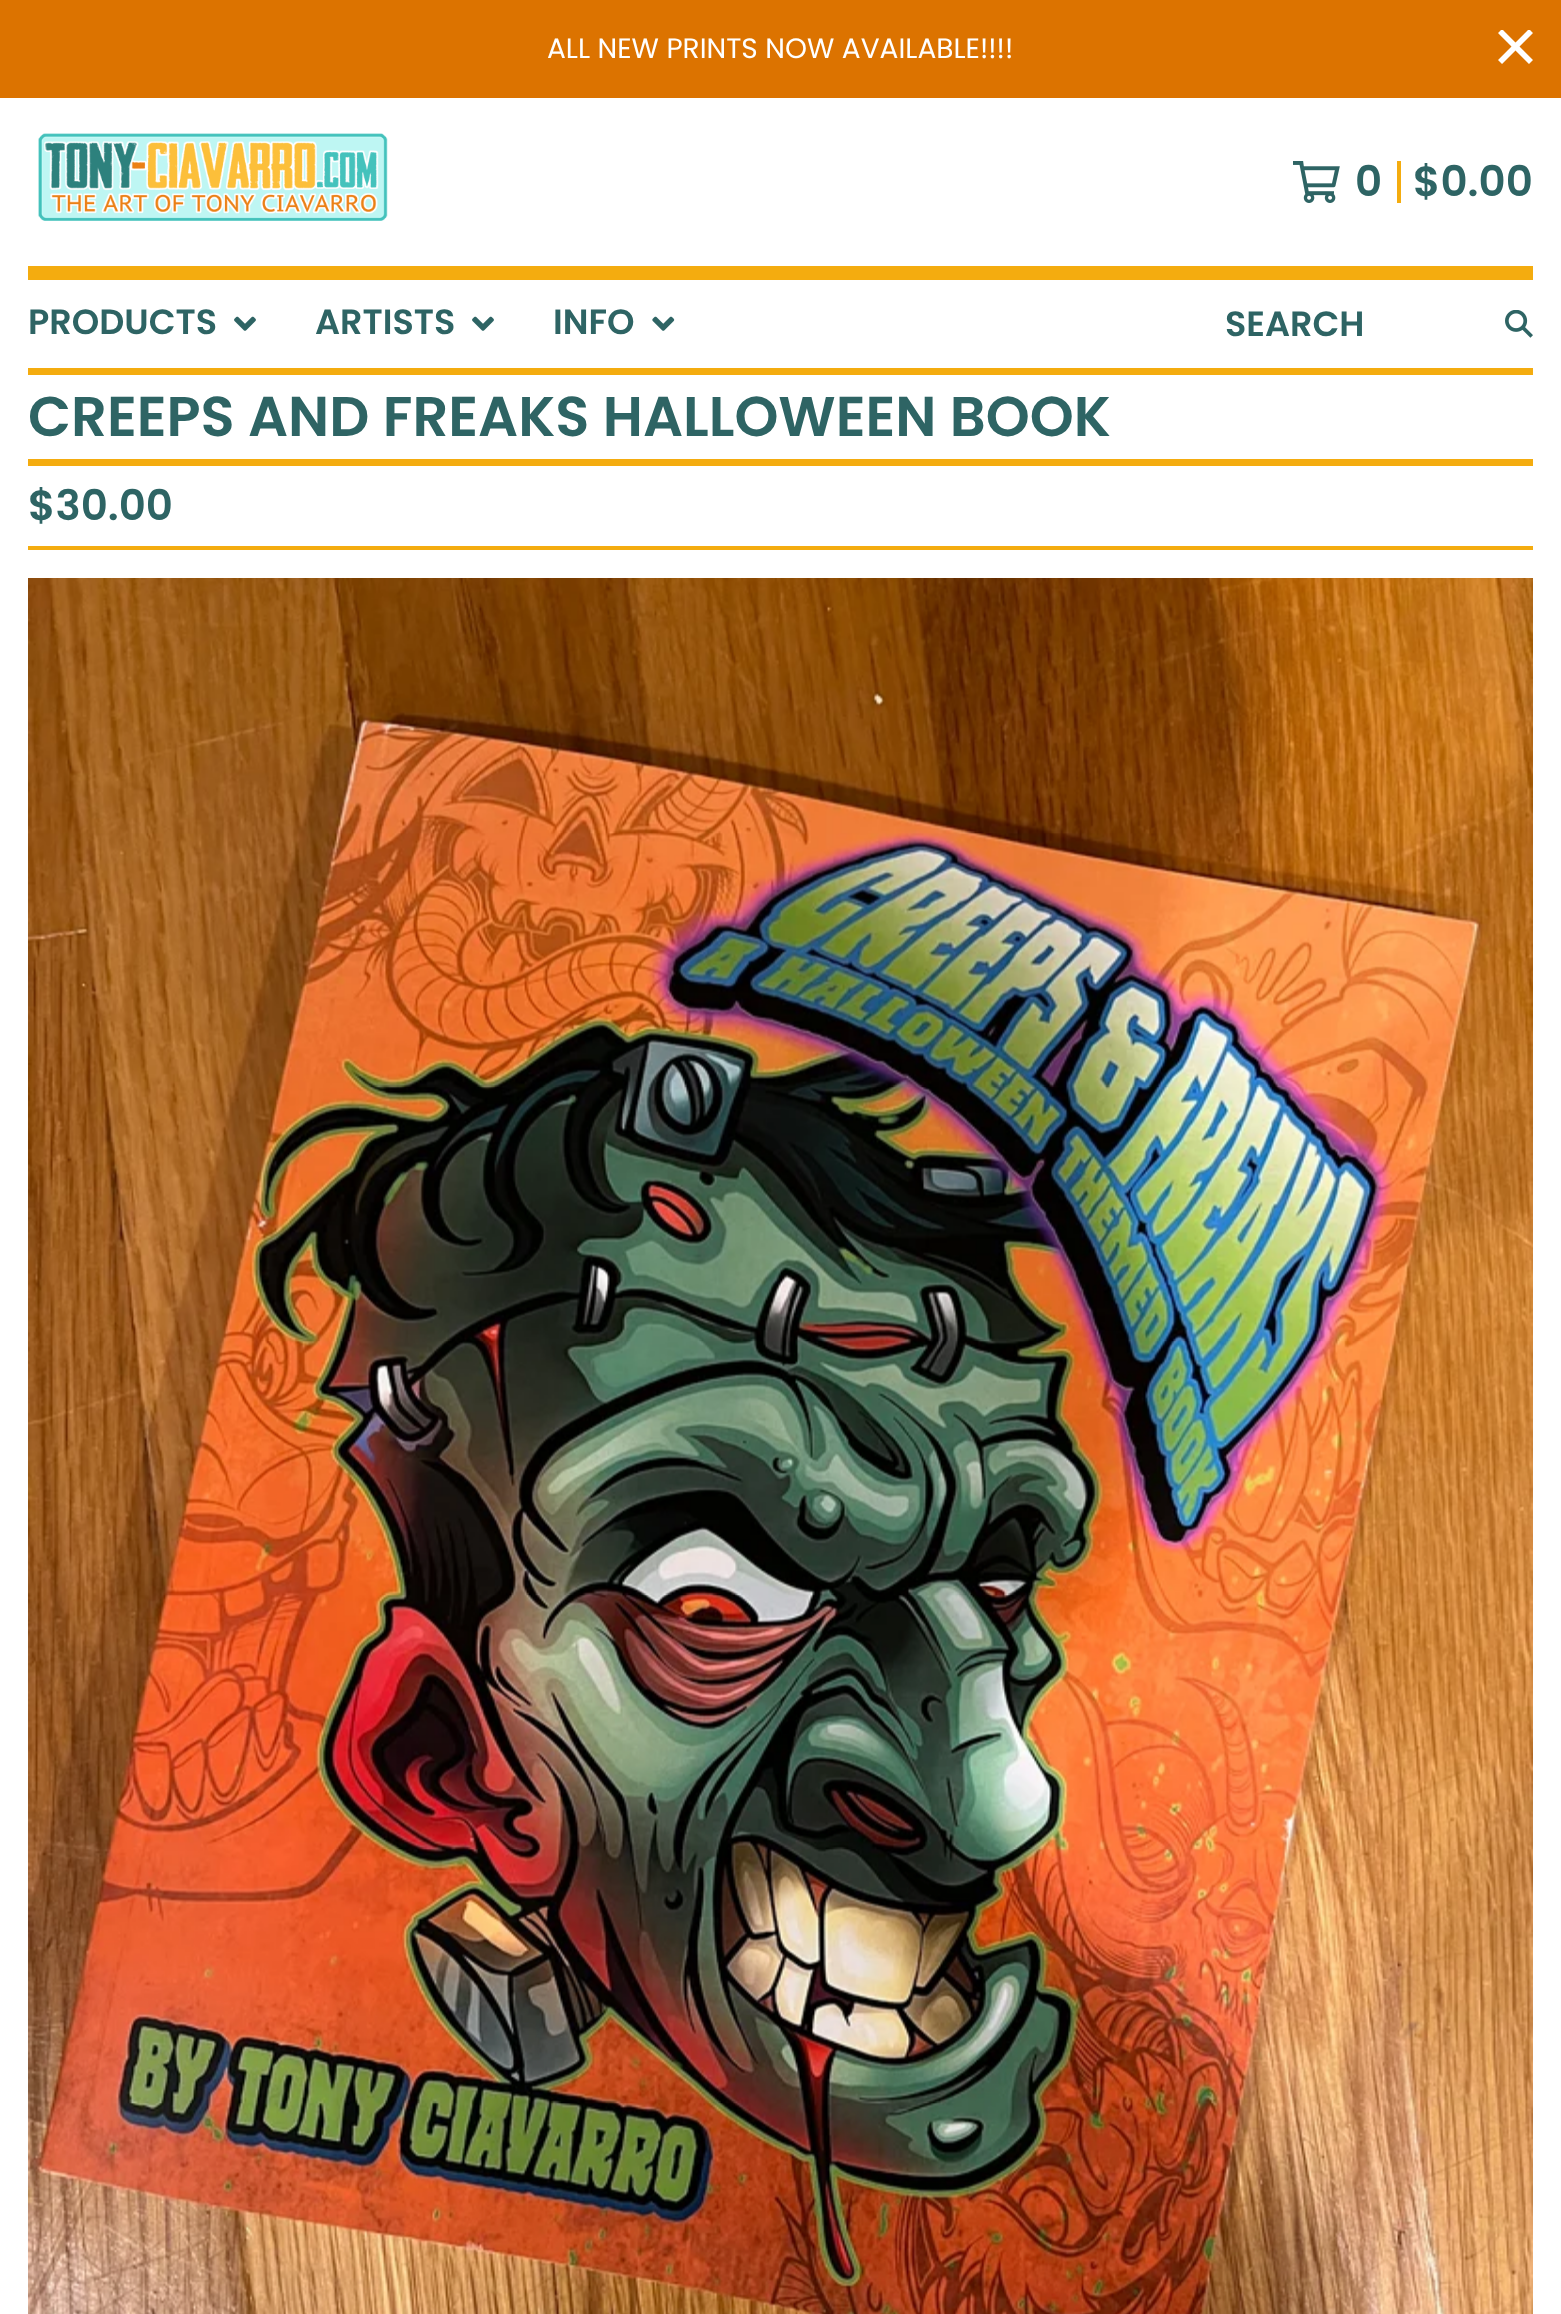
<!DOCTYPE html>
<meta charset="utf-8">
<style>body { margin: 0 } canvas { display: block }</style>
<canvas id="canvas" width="1561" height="2314"></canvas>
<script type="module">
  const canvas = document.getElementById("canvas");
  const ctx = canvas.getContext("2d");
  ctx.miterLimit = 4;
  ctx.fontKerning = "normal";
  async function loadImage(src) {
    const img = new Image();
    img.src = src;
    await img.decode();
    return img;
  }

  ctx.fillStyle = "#ffffff";
  ctx.fillRect(0, 0, 1561, 2314);
  ctx.fillStyle = "#dc7300";
  ctx.fillRect(0, 0, 1561, 98);
  ctx.font = "28px Poppins";
  ctx.fillStyle = "#ffffff";
  ctx.fillText("ALL NEW PRINTS NOW AVAILABLE!!!!", 547, 58);
  ctx.save();
  ctx.beginPath();
  ctx.rect(1498, 30, 35, 35);
  ctx.clip();
  ctx.beginPath();
  ctx.moveTo(1529, 29);
  ctx.lineTo(1533, 33);
  ctx.lineTo(1519.5, 46.5);
  ctx.lineTo(1533, 60);
  ctx.lineTo(1529, 64);
  ctx.lineTo(1515.5, 50.5);
  ctx.lineTo(1502, 64);
  ctx.lineTo(1498, 60);
  ctx.lineTo(1511.5, 46.5);
  ctx.lineTo(1498, 33);
  ctx.lineTo(1502, 29);
  ctx.lineTo(1515.5, 42.5);
  ctx.closePath();
  ctx.fill("evenodd");
  ctx.restore();
  ctx.fillStyle = "#f4ac0f";
  ctx.fillRect(28, 266, 1505, 14);
  ctx.drawImage(await loadImage("img1.png"), 38, 133, 350, 88);
  ctx.drawImage(await loadImage("img2.png"), 1293, 161, 47, 42);
  ctx.fillRect(1397, 161, 4, 42);
  ctx.font = "600 42px Poppins";
  ctx.fillStyle = "#2e6464";
  ctx.fillText("0", 1355, 196);
  ctx.fillText("$0.00", 1413, 196);
  ctx.fillStyle = "#f4ac0f";
  ctx.fillRect(28, 368, 1505, 7);
  ctx.font = "600 35px Poppins";
  ctx.fillStyle = "#2e6464";
  ctx.fillText("PRODUCTS", 28, 334);
  ctx.drawImage(await loadImage("img3.png"), 234, 316, 22, 15);
  ctx.fillText("ARTISTS", 315, 334);
  ctx.drawImage(await loadImage("img3.png"), 472, 316, 22, 15);
  ctx.fillText("INFO", 553, 334);
  ctx.drawImage(await loadImage("img4.png"), 652, 316, 23, 15);
  ctx.fillText("SEARCH", 1225, 336);
  ctx.drawImage(await loadImage("img5.png"), 1505, 310, 28, 28);
  ctx.fillStyle = "#f4ac0f";
  ctx.fillRect(28, 459, 1505, 7);
  ctx.font = "600 56px Poppins";
  ctx.fillStyle = "#2e6464";
  ctx.fillText("CREEPS AND FREAKS HALLOWEEN BOOK", 28, 436);
  ctx.fillStyle = "#f4ac0f";
  ctx.fillRect(28, 546, 1505, 4);
  ctx.font = "600 42px Poppins";
  ctx.fillStyle = "#2e6464";
  ctx.fillText("$30.00", 28, 520);
  ctx.drawImage(await loadImage("img6.png"), 28, 578, 1505, 1736);
</script>
